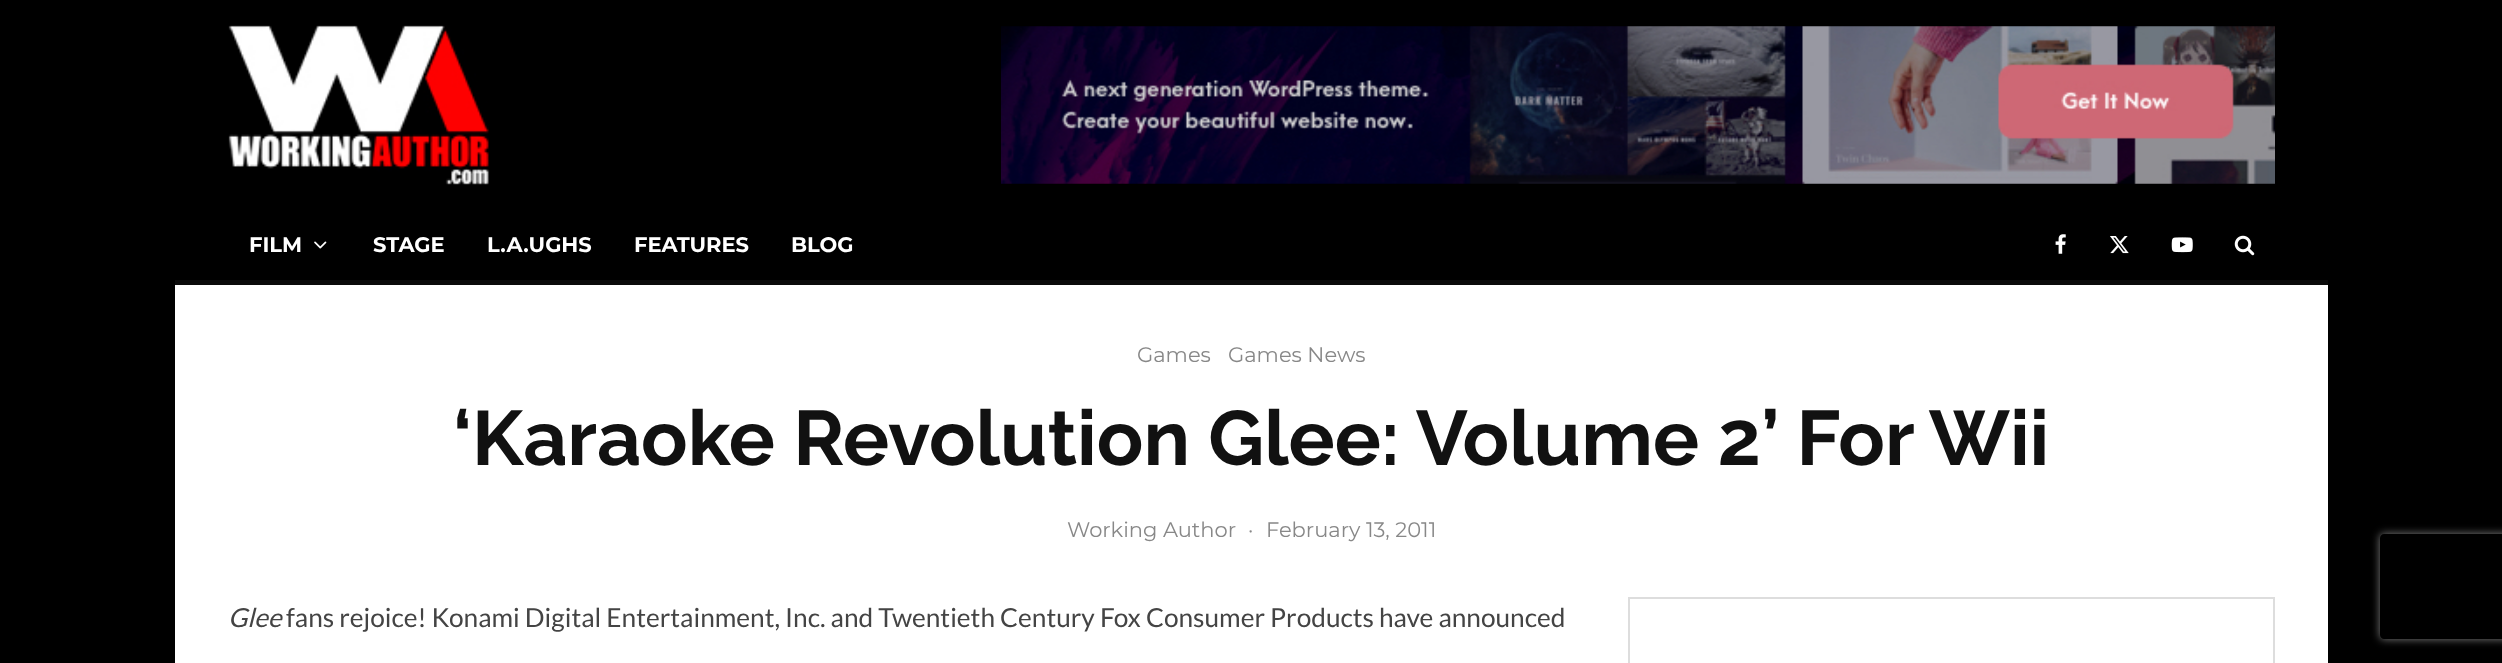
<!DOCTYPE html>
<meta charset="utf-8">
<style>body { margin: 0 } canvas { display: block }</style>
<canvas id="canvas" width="2502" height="663"></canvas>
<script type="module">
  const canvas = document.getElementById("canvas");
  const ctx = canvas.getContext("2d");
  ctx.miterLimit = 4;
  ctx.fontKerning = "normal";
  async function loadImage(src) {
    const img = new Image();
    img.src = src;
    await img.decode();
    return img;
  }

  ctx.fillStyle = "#000000";
  ctx.fillRect(0, 0, 2502, 663);
  ctx.drawImage(await loadImage("img1.png"), 228, 25, 261, 160);
  ctx.drawImage(await loadImage("img2.png"), 1001, 26, 1274, 158);
  ctx.fillStyle = "#0a0a0a";
  ctx.fillRect(175, 280, 2153, 5);
  ctx.font = "bold 21px Montserrat";
  ctx.fillStyle = "#ffffff";
  ctx.fillText("FILM", 249, 252);
  ctx.drawImage(await loadImage("img3.png"), 314, 241, 13, 8);
  ctx.fillText("STAGE", 373, 252);
  ctx.fillText("L.A.UGHS", 487, 252);
  ctx.fillText("FEATURES", 634, 252);
  ctx.fillText("BLOG", 791, 252);
  ctx.drawImage(await loadImage("img4.png"), 2055, 234, 11, 20);
  ctx.drawImage(await loadImage("img5.png"), 2110, 236, 19, 18);
  ctx.drawImage(await loadImage("img6.png"), 2171, 237, 22, 16);
  ctx.drawImage(await loadImage("img7.png"), 2234, 235, 21, 21);
  ctx.fillRect(175, 285, 2153, 378);
  ctx.font = "21px Montserrat";
  ctx.fillStyle = "#888888";
  ctx.fillText("Games", 1137, 362);
  ctx.fillText("Games News", 1228, 362);
  ctx.font = "bold 77px Raleway";
  ctx.fillStyle = "#111111";
  ctx.fillText("‘Karaoke Revolution Glee: Volume 2’ For Wii", 453, 465);
  ctx.font = "21px Montserrat";
  ctx.fillStyle = "#888888";
  ctx.fillText("Working Author", 1067, 537);
  ctx.fillText("·", 1248, 537);
  ctx.fillText("February 13, 2011", 1266, 537);
  ctx.font = "italic 26.25px Lato";
  ctx.fillStyle = "#444444";
  ctx.fillText("Glee", 228, 627);
  ctx.font = "26.25px Lato";
  ctx.fillText("fans rejoice! Konami Digital Entertainment, Inc. and Twentieth Century Fox Consumer Products have announced", 286, 627);
  ctx.strokeStyle = "#dddddd";
  ctx.lineWidth = 2;
  ctx.strokeRect(1629, 598, 645, 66);
  ctx.save();
  ctx.beginPath();
  ctx.moveTo(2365, 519);
  ctx.lineTo(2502, 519);
  ctx.lineTo(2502, 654);
  ctx.lineTo(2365, 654);
  ctx.closePath();
  ctx.moveTo(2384, 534);
  ctx.lineTo(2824, 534);
  ctx.bezierCurveTo(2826, 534, 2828, 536, 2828, 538);
  ctx.lineTo(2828, 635);
  ctx.bezierCurveTo(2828, 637, 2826, 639, 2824, 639);
  ctx.lineTo(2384, 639);
  ctx.bezierCurveTo(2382, 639, 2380, 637, 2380, 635);
  ctx.lineTo(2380, 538);
  ctx.bezierCurveTo(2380, 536, 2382, 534, 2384, 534);
  ctx.closePath();
  ctx.clip("evenodd");
  ctx.fillStyle = "#808080";
  ctx.filter = "blur(4.5px)";
  ctx.beginPath();
  ctx.roundRect(2380, 534, 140, 105, 4);
  ctx.fill();
  ctx.filter = "none";
  ctx.restore();
</script>
